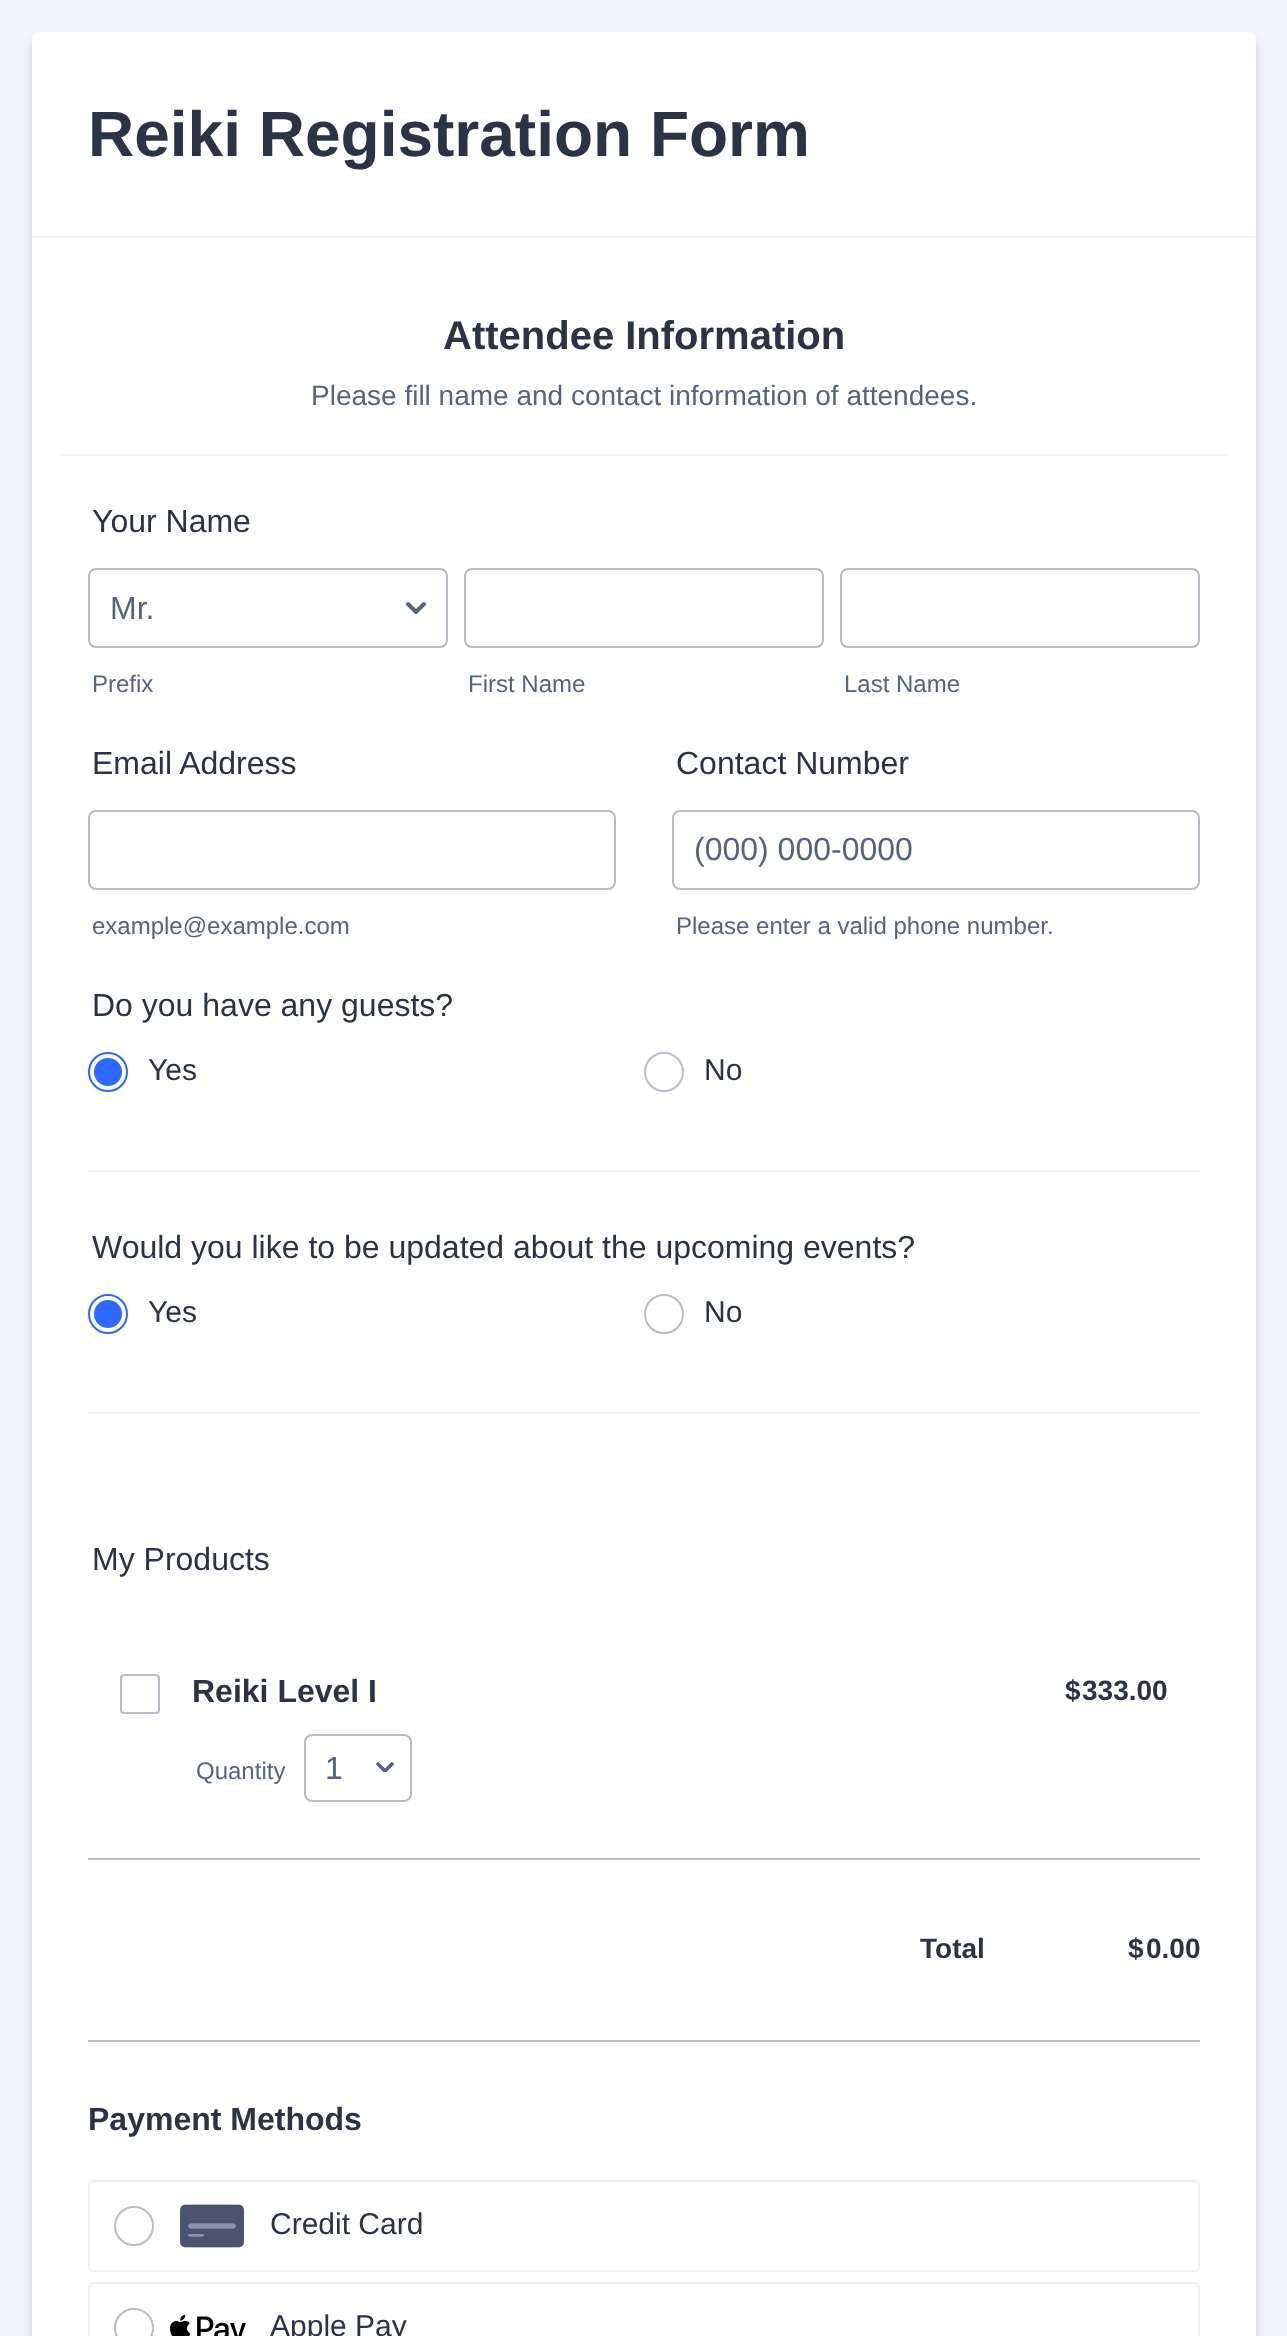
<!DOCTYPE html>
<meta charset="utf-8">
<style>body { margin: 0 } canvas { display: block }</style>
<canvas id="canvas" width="1287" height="2336"></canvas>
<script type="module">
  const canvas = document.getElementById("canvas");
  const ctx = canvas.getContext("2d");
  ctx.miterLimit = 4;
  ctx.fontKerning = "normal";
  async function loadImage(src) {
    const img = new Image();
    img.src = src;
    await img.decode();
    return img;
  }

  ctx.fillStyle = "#f3f3fe";
  ctx.fillRect(0, 0, 1287, 2336);
  ctx.fillStyle = "rgba(87, 100, 126, 0.21)";
  ctx.filter = "blur(4px)";
  ctx.beginPath();
  ctx.roundRect(32, 40, 1224, 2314, 6);
  ctx.fill();
  ctx.filter = "none";
  ctx.fillStyle = "#ffffff";
  ctx.beginPath();
  ctx.roundRect(32, 32, 1224, 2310, 6);
  ctx.fill();
  ctx.fillStyle = "#f3f3fe";
  ctx.fillRect(32, 236, 1224, 2);
  ctx.font = "bold 64px Liberation Sans";
  ctx.fillStyle = "#2c3345";
  ctx.fillText("Reiki Registration Form", 88, 156);
  ctx.fillStyle = "#f3f3fe";
  ctx.fillRect(60, 454, 1168, 2);
  ctx.font = "bold 40px Liberation Sans";
  ctx.fillStyle = "#2c3345";
  ctx.fillText("Attendee Information", 443, 349);
  ctx.font = "28px Liberation Sans";
  ctx.fillStyle = "#57647e";
  ctx.fillText("Please fill name and contact information of attendees.", 311, 405);
  ctx.font = "32px Liberation Sans";
  ctx.fillStyle = "#2c3345";
  ctx.fillText("Your Name", 92, 532);
  ctx.beginPath();
  ctx.moveTo(408, 604);
  ctx.lineTo(416, 612);
  ctx.lineTo(424, 604);
  ctx.strokeStyle = "#57647e";
  ctx.lineWidth = 4;
  ctx.lineCap = "round";
  ctx.lineJoin = "round";
  ctx.stroke();
  ctx.beginPath();
  ctx.roundRect(89, 569, 358, 78, 7);
  ctx.strokeStyle = "#b8bdc9";
  ctx.lineWidth = 2;
  ctx.lineJoin = "miter";
  ctx.stroke();
  ctx.fillStyle = "#57647e";
  ctx.fillText("Mr.", 110, 619);
  ctx.font = "24px Liberation Sans";
  ctx.fillText("Prefix", 92, 692);
  ctx.beginPath();
  ctx.roundRect(465, 569, 358, 78, 7);
  ctx.stroke();
  ctx.fillText("First Name", 468, 692);
  ctx.beginPath();
  ctx.roundRect(841, 569, 358, 78, 7);
  ctx.stroke();
  ctx.fillText("Last Name", 844, 692);
  ctx.font = "32px Liberation Sans";
  ctx.fillStyle = "#2c3345";
  ctx.fillText("Email Address", 92, 774);
  ctx.beginPath();
  ctx.roundRect(89, 811, 526, 78, 7);
  ctx.stroke();
  ctx.font = "24px Liberation Sans";
  ctx.fillStyle = "#57647e";
  ctx.fillText("example@example.com", 92, 934);
  ctx.font = "32px Liberation Sans";
  ctx.fillStyle = "#2c3345";
  ctx.fillText("Contact Number", 676, 774);
  ctx.beginPath();
  ctx.roundRect(673, 811, 526, 78, 7);
  ctx.stroke();
  ctx.fillStyle = "#57647e";
  ctx.fillText("(000) 000-0000", 694, 860);
  ctx.font = "24px Liberation Sans";
  ctx.fillText("Please enter a valid phone number.", 676, 934);
  ctx.font = "32px Liberation Sans";
  ctx.fillStyle = "#2c3345";
  ctx.fillText("Do you have any guests?", 92, 1016);
  ctx.beginPath();
  ctx.arc(108, 1072, 19, 0, Math.PI * 2);
  ctx.strokeStyle = "#2e69ff";
  ctx.stroke();
  ctx.fillStyle = "#2e69ff";
  ctx.beginPath();
  ctx.arc(108, 1072, 14, 0, Math.PI * 2);
  ctx.fill();
  ctx.font = "30px Liberation Sans";
  ctx.fillStyle = "#2c3345";
  ctx.fillText("Yes", 148, 1080);
  ctx.beginPath();
  ctx.arc(664, 1072, 19, 0, Math.PI * 2);
  ctx.strokeStyle = "#b8bdc9";
  ctx.stroke();
  ctx.fillText("No", 704, 1080);
  ctx.fillStyle = "#f3f3fe";
  ctx.fillRect(88, 1170, 1112, 2);
  ctx.font = "32px Liberation Sans";
  ctx.fillStyle = "#2c3345";
  ctx.fillText("Would you like to be updated about the upcoming events?", 92, 1258);
  ctx.beginPath();
  ctx.arc(108, 1314, 19, 0, Math.PI * 2);
  ctx.strokeStyle = "#2e69ff";
  ctx.stroke();
  ctx.fillStyle = "#2e69ff";
  ctx.beginPath();
  ctx.arc(108, 1314, 14, 0, Math.PI * 2);
  ctx.fill();
  ctx.font = "30px Liberation Sans";
  ctx.fillStyle = "#2c3345";
  ctx.fillText("Yes", 148, 1322);
  ctx.beginPath();
  ctx.arc(664, 1314, 19, 0, Math.PI * 2);
  ctx.strokeStyle = "#b8bdc9";
  ctx.stroke();
  ctx.fillText("No", 704, 1322);
  ctx.fillStyle = "#f3f3fe";
  ctx.fillRect(88, 1412, 1112, 2);
  ctx.font = "32px Liberation Sans";
  ctx.fillStyle = "#2c3345";
  ctx.fillText("My Products", 92, 1570);
  ctx.beginPath();
  ctx.roundRect(121, 1675, 38, 38, 3);
  ctx.stroke();
  ctx.font = "bold 32px Liberation Sans";
  ctx.fillText("Reiki Level I", 192, 1702);
  ctx.font = "bold 28px Liberation Sans";
  ctx.fillText("$", 1065, 1700);
  ctx.fillText("333.00", 1082, 1700);
  ctx.font = "24px Liberation Sans";
  ctx.fillStyle = "#57647e";
  ctx.fillText("Quantity", 196, 1779);
  ctx.save();
  ctx.beginPath();
  ctx.rect(376, 1762, 18, 10);
  ctx.clip();
  ctx.beginPath();
  ctx.moveTo(378, 1764);
  ctx.lineTo(385, 1771);
  ctx.lineTo(392, 1764);
  ctx.strokeStyle = "#57647e";
  ctx.lineWidth = 3.6;
  ctx.lineJoin = "round";
  ctx.stroke();
  ctx.restore();
  ctx.beginPath();
  ctx.roundRect(305, 1735, 106, 66, 7);
  ctx.stroke();
  ctx.font = "32px Liberation Sans";
  ctx.fillText("1", 325, 1779);
  ctx.fillStyle = "#b8bdc9";
  ctx.fillRect(88, 1858, 1112, 2);
  ctx.font = "bold 28px Liberation Sans";
  ctx.fillStyle = "#2c3345";
  ctx.fillText("Total", 920, 1958);
  ctx.fillText("$", 1128, 1958);
  ctx.fillText("0.00", 1146, 1958);
  ctx.fillStyle = "#b8bdc9";
  ctx.fillRect(88, 2040, 1112, 2);
  ctx.font = "bold 32px Liberation Sans";
  ctx.fillStyle = "#2c3345";
  ctx.fillText("Payment Methods", 88, 2130);
  ctx.beginPath();
  ctx.roundRect(89, 2181, 1110, 90, 5);
  ctx.strokeStyle = "#eeeeee";
  ctx.stroke();
  ctx.drawImage(await loadImage("img1.png"), 180, 2204, 64, 44);
  ctx.beginPath();
  ctx.arc(134, 2226, 19, 0, Math.PI * 2);
  ctx.strokeStyle = "#b8bdc9";
  ctx.stroke();
  ctx.font = "30px Liberation Sans";
  ctx.fillText("Credit Card", 270, 2234);
  ctx.beginPath();
  ctx.roundRect(89, 2283, 1110, 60, 5);
  ctx.strokeStyle = "#eeeeee";
  ctx.stroke();
  ctx.drawImage(await loadImage("img2.png"), 170, 2314, 76, 22);
  ctx.beginPath();
  ctx.arc(134, 2328, 19, 0, Math.PI * 2);
  ctx.strokeStyle = "#b8bdc9";
  ctx.stroke();
  ctx.fillText("Apple Pay", 270, 2336);
</script>
